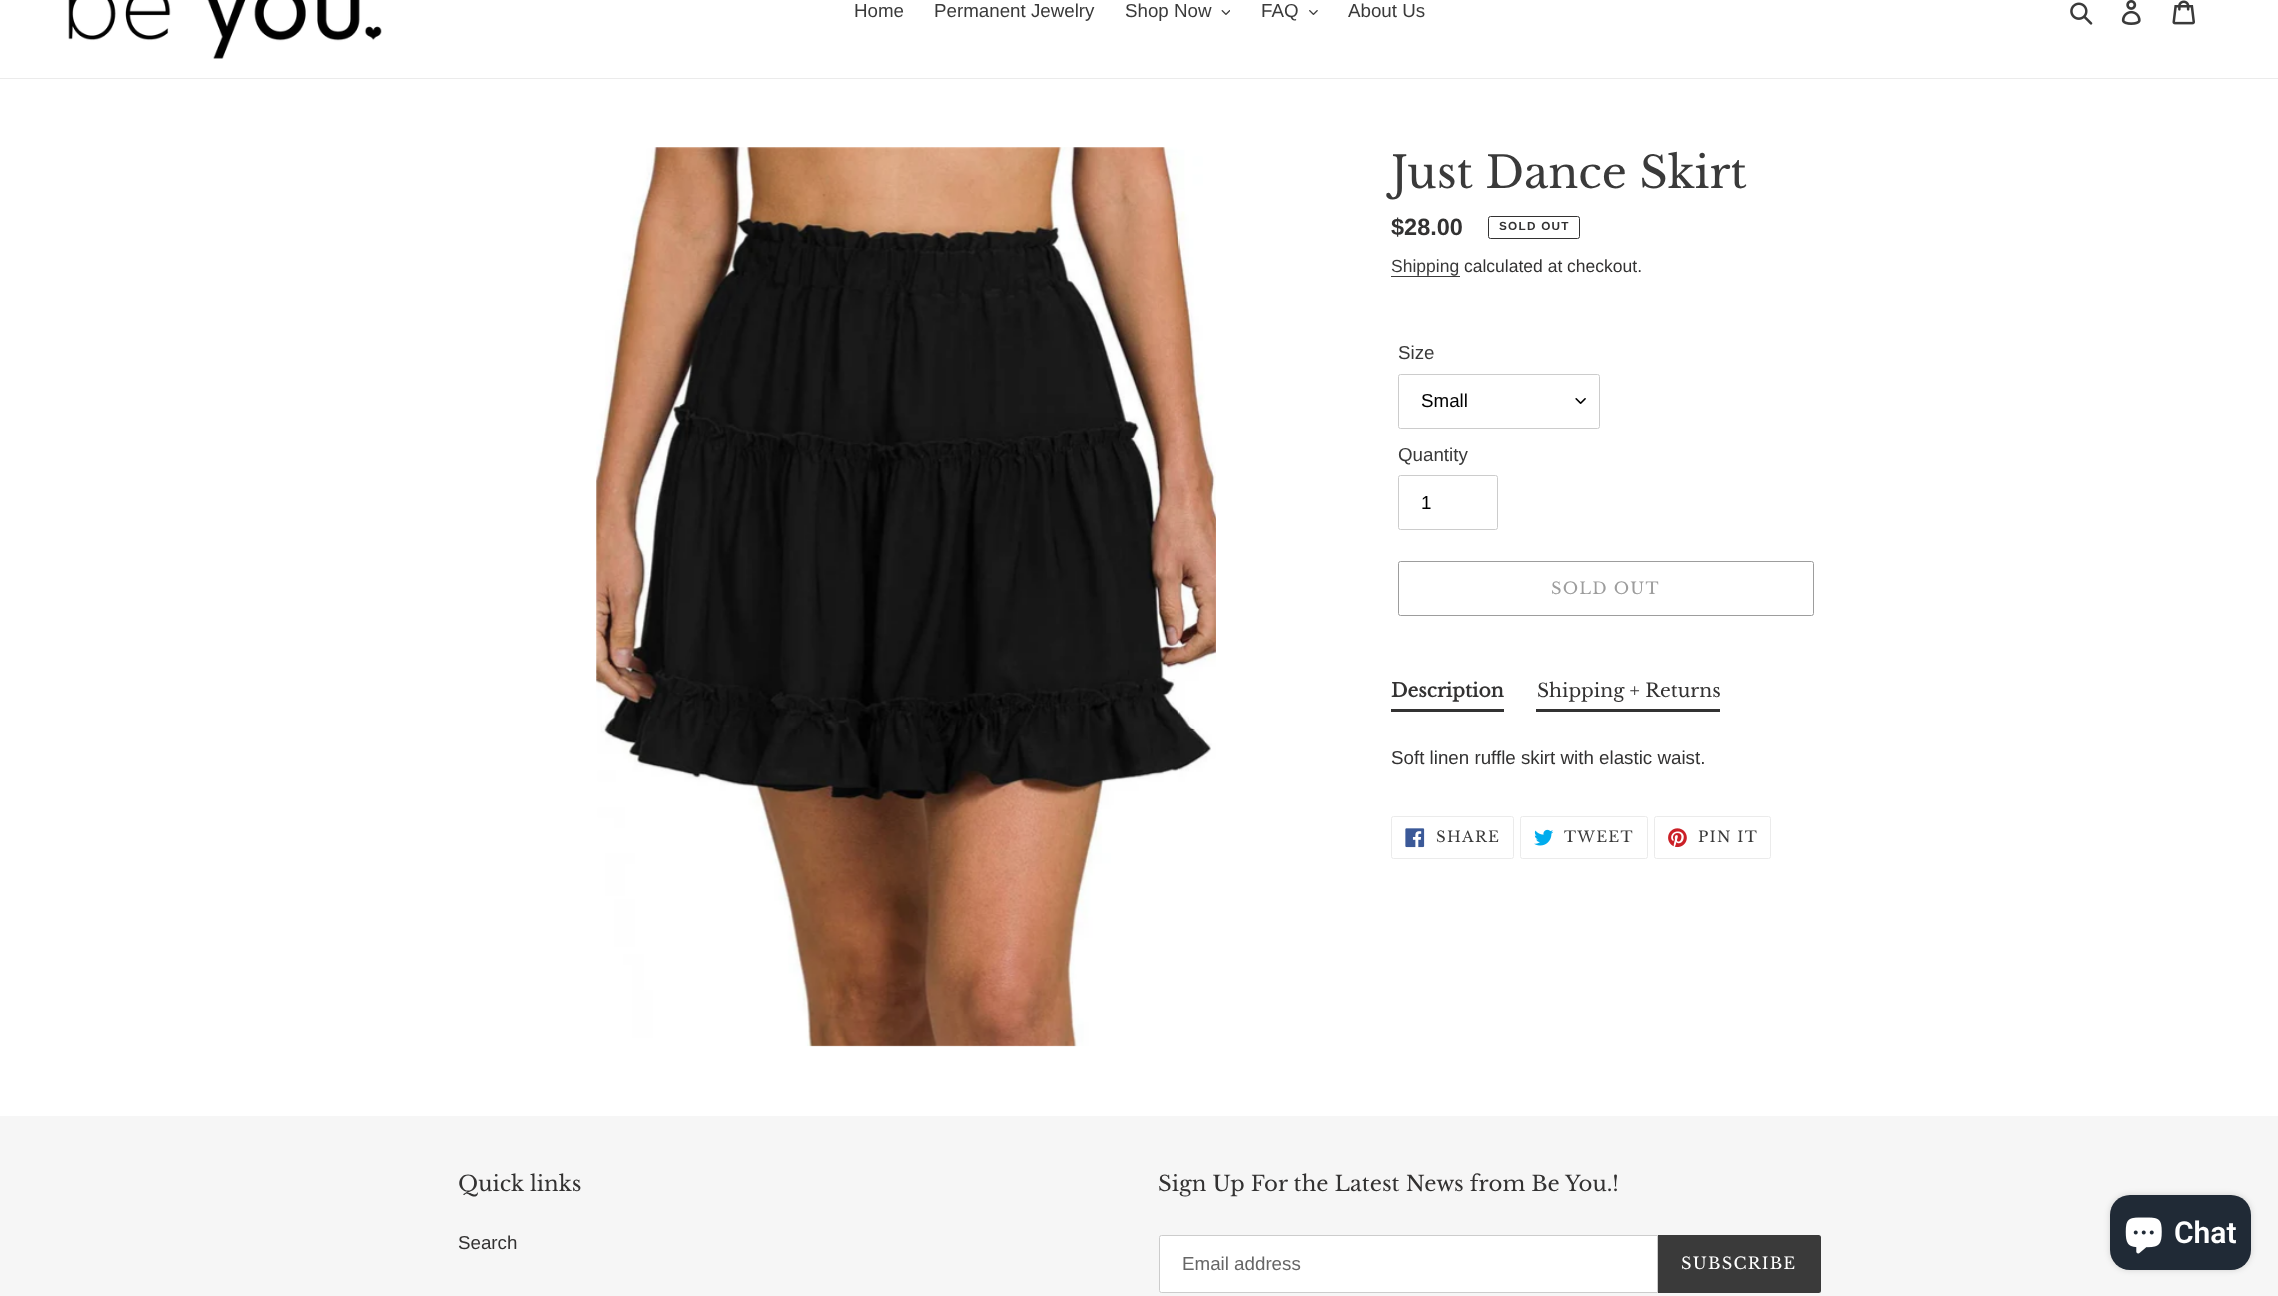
<!DOCTYPE html>
<meta charset="utf-8">
<style>body { margin: 0 } canvas { display: block }</style>
<canvas id="canvas" width="2278" height="1296"></canvas>
<script type="module">
  const canvas = document.getElementById("canvas");
  const ctx = canvas.getContext("2d");
  ctx.miterLimit = 4;
  ctx.fontKerning = "normal";
  async function loadImage(src) {
    const img = new Image();
    img.src = src;
    await img.decode();
    return img;
  }

  ctx.fillStyle = "#ffffff";
  ctx.fillRect(0, 0, 2278, 1296);
  ctx.fillStyle = "#ebebeb";
  ctx.fillRect(0, 78, 2278, 1);
  ctx.drawImage(await loadImage("img1.png"), 68, 0, 314, 59);
  ctx.font = "18.75px Liberation Sans";
  ctx.fillStyle = "#3a3a3a";
  ctx.fillText("Home", 854, 17);
  ctx.fillText("Permanent Jewelry", 934, 17);
  ctx.fillText("Shop Now", 1125, 17);
  ctx.drawImage(await loadImage("img2.png"), 1221, 10, 9, 5);
  ctx.fillText("FAQ", 1261, 17);
  ctx.drawImage(await loadImage("img3.png"), 1309, 10, 9, 5);
  ctx.fillText("About Us", 1348, 17);
  ctx.drawImage(await loadImage("img4.png"), 2070, 2, 23, 23);
  ctx.drawImage(await loadImage("img5.png"), 2121, 0, 20, 25);
  ctx.drawImage(await loadImage("img6.png"), 2172, 0, 23, 25);
  ctx.drawImage(await loadImage("img7.png"), 596, 147, 620, 900);
  ctx.font = "43.75px Libre Baskerville";
  ctx.fillText("Just Dance Skirt", 1391, 188);
  ctx.font = "bold 23.5px Liberation Sans";
  ctx.fillStyle = "#333232";
  ctx.fillText("$28.00", 1391, 235);
  ctx.beginPath();
  ctx.roundRect(1488.5, 216.5, 91, 22, 2);
  ctx.strokeStyle = "#333232";
  ctx.stroke();
  ctx.letterSpacing = "1.25px";
  ctx.font = "bold 11.75px Liberation Sans";
  ctx.fillText("SOLD OUT", 1499, 230);
  ctx.letterSpacing = "0px";
  ctx.font = "17.5px Liberation Sans";
  ctx.fillStyle = "#3a3a3a";
  ctx.fillText("Shipping", 1391, 272);
  ctx.fillRect(1391, 276, 69, 1);
  ctx.fillStyle = "#333232";
  ctx.fillText("calculated at checkout.", 1464, 272);
  ctx.font = "18.75px Liberation Sans";
  ctx.fillStyle = "#3a3a3a";
  ctx.fillText("Size", 1398, 359);
  ctx.drawImage(await loadImage("img8.png"), 1575, 398, 11, 6);
  ctx.beginPath();
  ctx.roundRect(1398.5, 374.5, 201, 54, 2);
  ctx.strokeStyle = "#cccccc";
  ctx.stroke();
  ctx.fillStyle = "#000000";
  ctx.fillText("Small", 1421, 407);
  ctx.fillStyle = "#3a3a3a";
  ctx.fillText("Quantity", 1398, 461);
  ctx.beginPath();
  ctx.roundRect(1398.5, 475.5, 99, 54, 2);
  ctx.stroke();
  ctx.fillStyle = "#000000";
  ctx.fillText("1", 1421, 509);
  ctx.beginPath();
  ctx.roundRect(1398.5, 561.5, 415, 54, 2);
  ctx.strokeStyle = "#9d9d9d";
  ctx.stroke();
  ctx.letterSpacing = "1.25px";
  ctx.font = "16.25px Libre Baskerville";
  ctx.fillStyle = "#9d9d9d";
  ctx.fillText("SOLD OUT", 1551, 594);
  ctx.fillStyle = "#333232";
  ctx.fillRect(1391, 709, 113, 3);
  ctx.letterSpacing = "0px";
  ctx.font = "bold 18.75px Libre Baskerville";
  ctx.fillText("Description", 1391, 697);
  ctx.fillRect(1536, 709, 184, 3);
  ctx.font = "18.75px Libre Baskerville";
  ctx.fillText("Shipping + Returns", 1537, 697);
  ctx.font = "18.75px Liberation Sans";
  ctx.fillText("Soft linen ruffle skirt with elastic waist.", 1391, 764);
  ctx.beginPath();
  ctx.roundRect(1391.5, 816.5, 122, 42, 2);
  ctx.strokeStyle = "#ebebeb";
  ctx.stroke();
  ctx.drawImage(await loadImage("img9.png"), 1405, 828, 20, 20);
  ctx.letterSpacing = "1.25px";
  ctx.font = "15px Libre Baskerville";
  ctx.fillStyle = "#3a3a3a";
  ctx.fillText("SHARE", 1436, 842);
  ctx.beginPath();
  ctx.roundRect(1520.5, 816.5, 127, 42, 2);
  ctx.stroke();
  ctx.drawImage(await loadImage("img10.png"), 1534, 829, 20, 17);
  ctx.fillText("TWEET", 1564, 842);
  ctx.beginPath();
  ctx.roundRect(1654.5, 816.5, 116, 42, 2);
  ctx.stroke();
  ctx.drawImage(await loadImage("img11.png"), 1668, 828, 19, 20);
  ctx.fillText("PIN IT", 1698, 842);
  ctx.fillStyle = "#f6f6f6";
  ctx.fillRect(0, 1116, 2278, 180);
  ctx.letterSpacing = "0px";
  ctx.font = "21.25px Libre Baskerville";
  ctx.fillStyle = "#333232";
  ctx.fillText("Quick links", 458, 1191);
  ctx.font = "18.75px Liberation Sans";
  ctx.fillText("Search", 458, 1249);
  ctx.font = "21.25px Libre Baskerville";
  ctx.fillText("Sign Up For the Latest News from Be You.!", 1158, 1191);
  ctx.fillStyle = "#ffffff";
  ctx.beginPath();
  ctx.roundRect(1159.5, 1235.5, 498, 57, [2, 0, 0, 2]);
  ctx.fill();
  ctx.strokeStyle = "#cccccc";
  ctx.stroke();
  ctx.font = "18.75px Liberation Sans";
  ctx.fillStyle = "#666666";
  ctx.fillText("Email address", 1182, 1270);
  ctx.fillStyle = "#3a3a3a";
  ctx.beginPath();
  ctx.roundRect(1658, 1235, 163, 58, [0, 2.5, 2.5, 0]);
  ctx.fill();
  ctx.letterSpacing = "1.25px";
  ctx.font = "16.25px Libre Baskerville";
  ctx.fillStyle = "#ffffff";
  ctx.fillText("SUBSCRIBE", 1681, 1269);
  ctx.fillStyle = "rgba(0, 0, 0, 0.15)";
  ctx.filter = "blur(3px)";
  ctx.beginPath();
  ctx.roundRect(2110, 1195, 141, 75, 20);
  ctx.fill();
  ctx.filter = "none";
  ctx.fillStyle = "#202a36";
  ctx.beginPath();
  ctx.roundRect(2110, 1195, 141, 75, 20);
  ctx.fill();
  ctx.drawImage(await loadImage("img12.png"), 2125, 1217, 37, 37);
  ctx.letterSpacing = "0px";
  ctx.font = "600 30px Roboto";
  ctx.fillStyle = "#ffffff";
  ctx.fillText("Chat", 2174, 1243);
</script>
